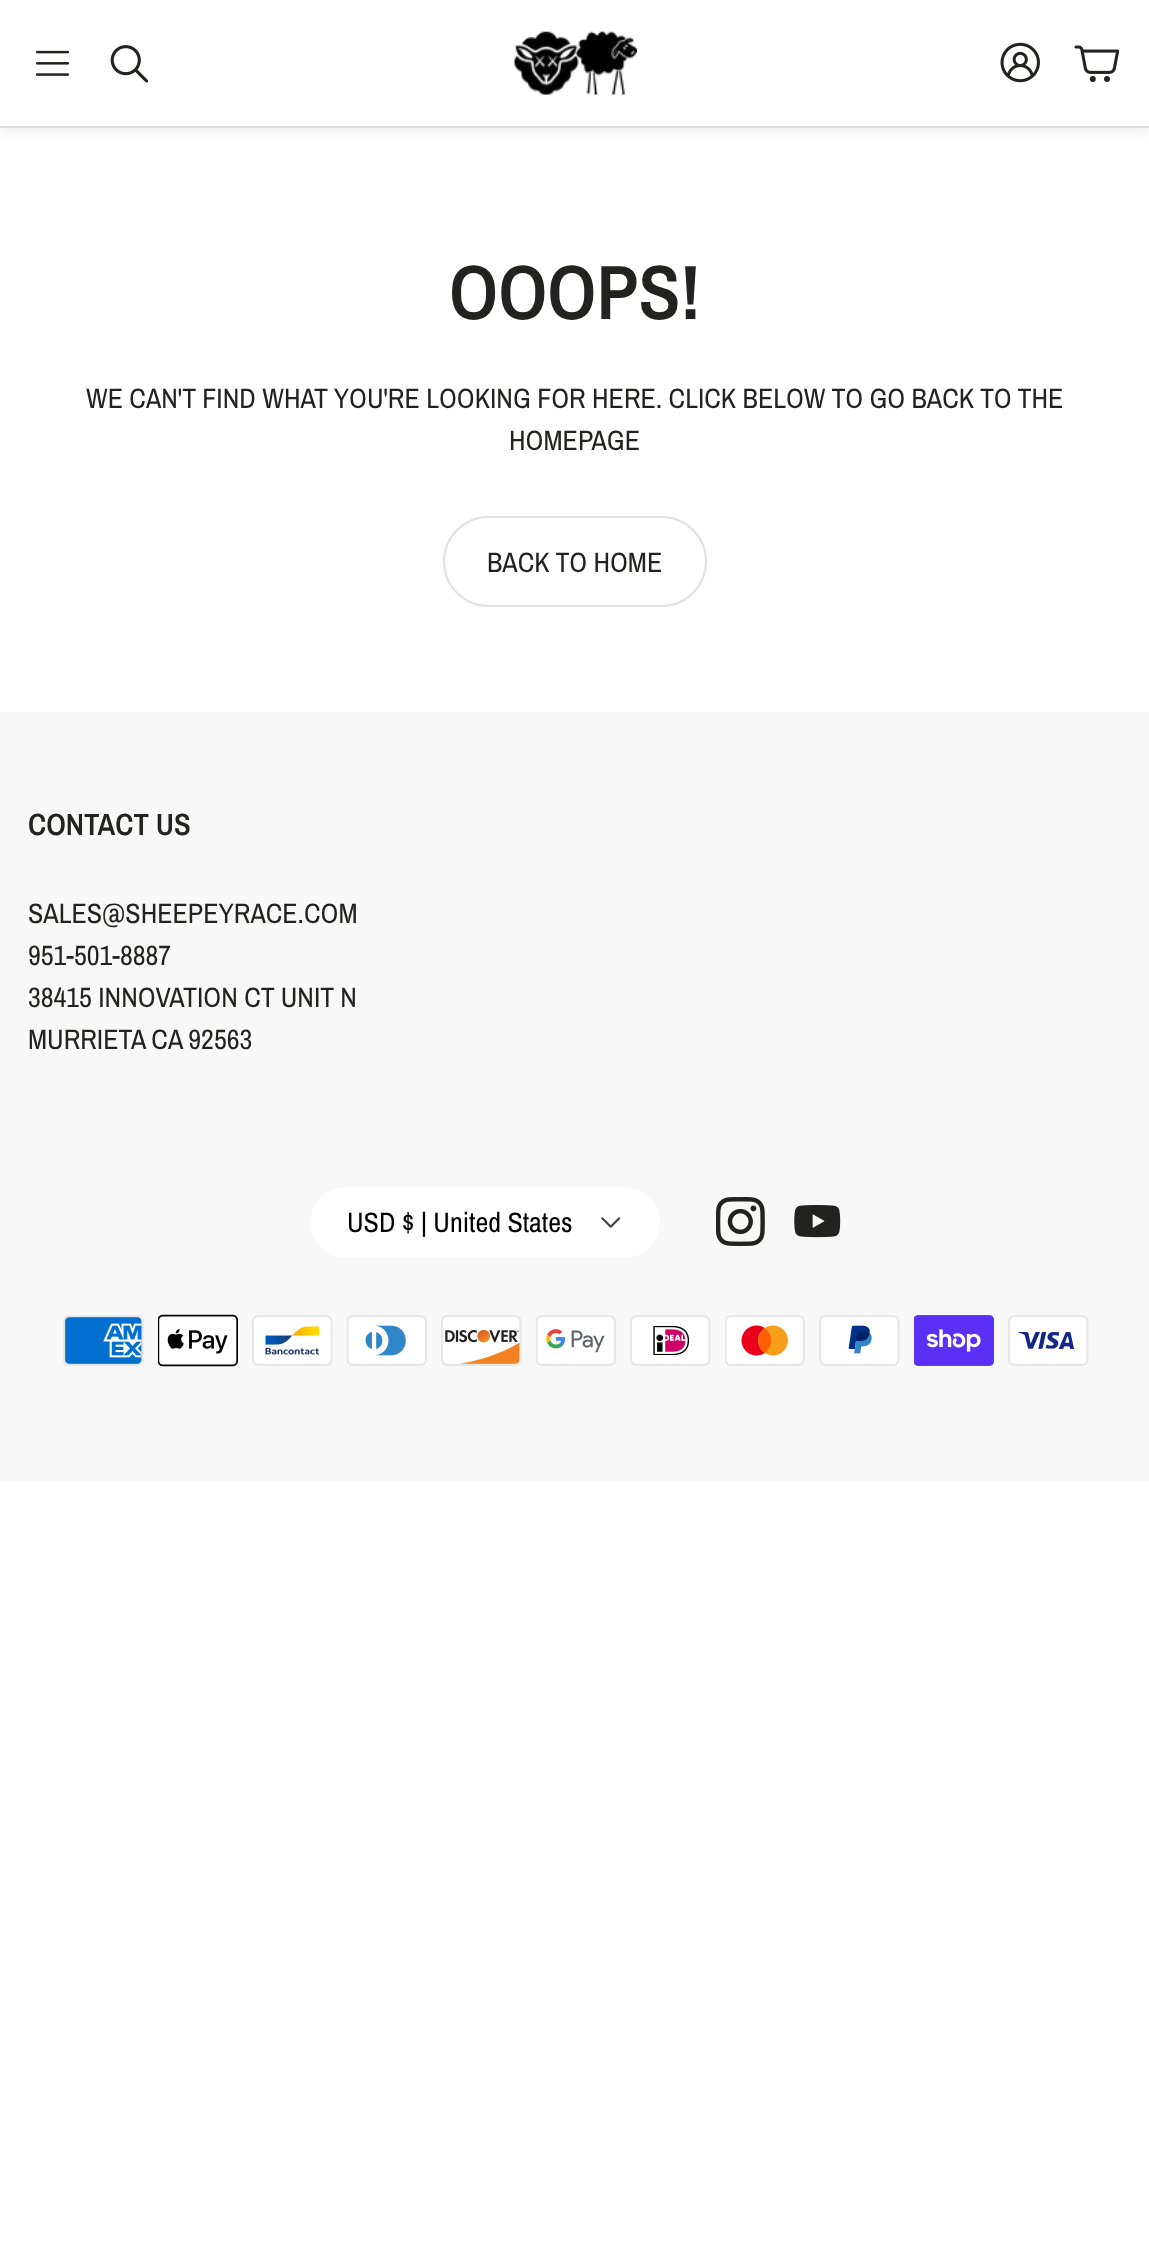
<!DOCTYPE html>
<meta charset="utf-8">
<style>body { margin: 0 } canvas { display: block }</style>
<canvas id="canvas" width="1149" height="2258"></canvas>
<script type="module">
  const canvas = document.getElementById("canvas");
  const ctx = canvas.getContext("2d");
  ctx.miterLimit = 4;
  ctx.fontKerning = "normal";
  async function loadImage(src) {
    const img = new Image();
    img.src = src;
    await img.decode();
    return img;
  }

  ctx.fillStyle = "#ffffff";
  ctx.fillRect(0, 0, 1149, 2258);
  ctx.fillStyle = "rgba(0, 0, 0, 0.05)";
  ctx.filter = "blur(5px)";
  ctx.beginPath();
  ctx.rect(0, 5, 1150, 128);
  ctx.fill();
  ctx.filter = "none";
  ctx.fillStyle = "#ffffff";
  ctx.fillRect(0, 1, 1149, 125);
  ctx.fillStyle = "#dfdfdf";
  ctx.fillRect(0, 126, 1149, 2);
  ctx.drawImage(await loadImage("img1.png"), 35, 50, 35, 26);
  ctx.drawImage(await loadImage("img2.png"), 110, 45, 39, 38);
  ctx.drawImage(await loadImage("img3.png"), 514, 31, 123, 64);
  ctx.drawImage(await loadImage("img4.png"), 1000, 42, 40, 41);
  ctx.drawImage(await loadImage("img5.png"), 1074, 45, 46, 37);
  ctx.font = "600 77px Archivo Narrow";
  ctx.fillStyle = "#222321";
  ctx.fillText("OOOPS!", 449, 319);
  ctx.font = "28px Archivo Narrow";
  ctx.fillText("WE CAN'T FIND WHAT YOU'RE LOOKING FOR HERE. CLICK BELOW TO GO BACK TO THE", 86, 408);
  ctx.fillText("HOMEPAGE", 509, 450);
  ctx.beginPath();
  ctx.roundRect(444, 517, 262, 89, 44.5);
  ctx.strokeStyle = "#e2e2e2";
  ctx.lineWidth = 2;
  ctx.stroke();
  ctx.fillText("BACK TO HOME", 487, 572);
  ctx.fillStyle = "#f8f8f8";
  ctx.fillRect(0, 712, 1149, 769);
  ctx.font = "600 30.75px Archivo Narrow";
  ctx.fillStyle = "#222321";
  ctx.fillText("CONTACT US", 28, 835);
  ctx.font = "28px Archivo Narrow";
  ctx.fillText("SALES@SHEEPEYRACE.COM", 28, 923);
  ctx.fillText("951-501-8887", 28, 965);
  ctx.fillText("38415 INNOVATION CT UNIT N", 28, 1007);
  ctx.fillText("MURRIETA CA 92563", 28, 1049);
  ctx.fillStyle = "#ffffff";
  ctx.beginPath();
  ctx.roundRect(310, 1187, 350, 71, 35.5);
  ctx.fill();
  ctx.fillStyle = "#000000";
  ctx.fillText("USD $ | United States", 347, 1232);
  ctx.drawImage(await loadImage("img6.png"), 601, 1217, 20, 11);
  ctx.drawImage(await loadImage("img7.png"), 716, 1197, 49, 49);
  ctx.drawImage(await loadImage("img8.png"), 794, 1205, 47, 33);
  ctx.drawImage(await loadImage("img9.png"), 63, 1315, 81, 51);
  ctx.drawImage(await loadImage("img10.png"), 158, 1314, 80, 53);
  ctx.drawImage(await loadImage("img11.png"), 252, 1315, 81, 51);
  ctx.drawImage(await loadImage("img12.png"), 347, 1315, 80, 51);
  ctx.drawImage(await loadImage("img13.png"), 441, 1315, 81, 51);
  ctx.drawImage(await loadImage("img14.png"), 536, 1315, 80, 51);
  ctx.drawImage(await loadImage("img15.png"), 630, 1315, 81, 51);
  ctx.drawImage(await loadImage("img16.png"), 725, 1315, 80, 51);
  ctx.drawImage(await loadImage("img17.png"), 819, 1315, 81, 51);
  ctx.drawImage(await loadImage("img18.png"), 914, 1315, 80, 51);
  ctx.drawImage(await loadImage("img19.png"), 1008, 1315, 81, 51);
</script>
